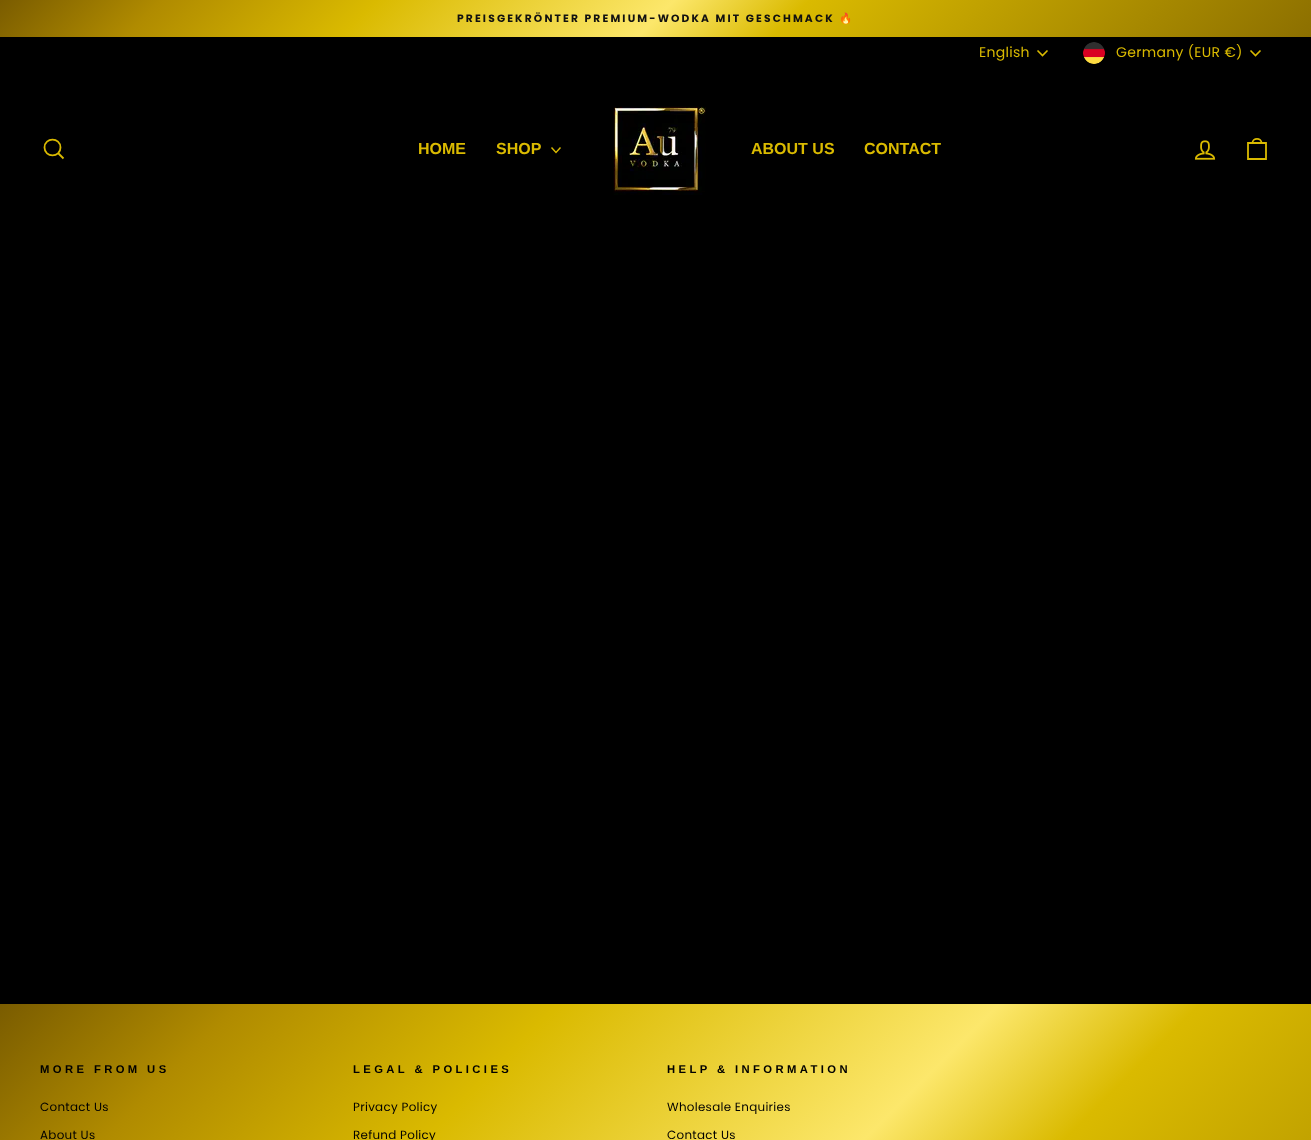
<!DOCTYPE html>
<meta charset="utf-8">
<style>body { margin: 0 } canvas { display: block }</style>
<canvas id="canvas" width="1311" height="1140"></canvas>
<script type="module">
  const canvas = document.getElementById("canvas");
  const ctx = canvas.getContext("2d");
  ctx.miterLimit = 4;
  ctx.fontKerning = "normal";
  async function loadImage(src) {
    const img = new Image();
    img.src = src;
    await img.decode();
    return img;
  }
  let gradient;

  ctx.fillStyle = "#000000";
  ctx.fillRect(0, 0, 1311, 1140);
  gradient = ctx.createLinearGradient(318, -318, 993, 356);
  gradient.addColorStop(0, "#7a5c00");
  gradient.addColorStop(0.12, "#b08b00");
  gradient.addColorStop(0.28, "#daba00");
  gradient.addColorStop(0.5, "#fce76b");
  gradient.addColorStop(0.6, "#daba00");
  gradient.addColorStop(1, "#8c6f00");
  ctx.fillStyle = gradient;
  ctx.fillRect(0, 0, 1311, 37);
  ctx.letterSpacing = "2.15px";
  ctx.font = "bold 10.7px Poppins";
  ctx.fillStyle = "#111111";
  ctx.fillText("PREISGEKRÖNTER PREMIUM-WODKA MIT GESCHMACK", 457, 22);
  ctx.font = "bold 10.7px Noto Color Emoji";
  ctx.fillText("🔥", 839, 22);
  ctx.letterSpacing = "0.3px";
  ctx.font = "14px Poppins";
  ctx.fillStyle = "#daba00";
  ctx.fillText("English", 979, 57);
  ctx.beginPath();
  ctx.moveTo(1037.5, 50.5);
  ctx.lineTo(1042.5, 55.5);
  ctx.lineTo(1047.5, 50.5);
  ctx.strokeStyle = "#daba00";
  ctx.lineWidth = 1.6;
  ctx.stroke();
  ctx.drawImage(await loadImage("img1.png"), 1083, 42, 22, 22);
  ctx.fillText("Germany (EUR €)", 1116, 57);
  ctx.beginPath();
  ctx.moveTo(1250.5, 50.5);
  ctx.lineTo(1255.5, 55.5);
  ctx.lineTo(1260.5, 50.5);
  ctx.stroke();
  ctx.beginPath();
  ctx.moveTo(60.5, 147.5);
  ctx.bezierCurveTo(60.5, 158, 44.5, 158, 44.5, 147.5);
  ctx.bezierCurveTo(44.5, 137, 60.5, 137, 60.5, 147.5);
  ctx.closePath();
  ctx.moveTo(63.5, 158.5);
  ctx.lineTo(58.5, 153.5);
  ctx.lineWidth = 1.8;
  ctx.stroke();
  ctx.letterSpacing = "0px";
  ctx.font = "bold 16px Liberation Sans";
  ctx.fillText("HOME", 418, 154);
  ctx.fillText("SHOP", 496, 154);
  ctx.beginPath();
  ctx.moveTo(551.5, 147.5);
  ctx.lineTo(556, 152.5);
  ctx.lineTo(560.5, 147.5);
  ctx.lineWidth = 1.4;
  ctx.stroke();
  ctx.drawImage(await loadImage("img2.png"), 613, 106, 93, 89);
  ctx.fillText("ABOUT US", 751, 154);
  ctx.fillText("CONTACT", 864, 154);
  ctx.drawImage(await loadImage("img3.png"), 1194, 140, 22, 20);
  ctx.beginPath();
  ctx.moveTo(1248, 143);
  ctx.lineTo(1266, 143);
  ctx.lineTo(1266, 159);
  ctx.lineTo(1248, 159);
  ctx.closePath();
  ctx.moveTo(1252.5, 143);
  ctx.bezierCurveTo(1252.5, 137.5, 1261.5, 137.5, 1261.5, 143);
  ctx.lineWidth = 1.8;
  ctx.stroke();
  gradient = ctx.createLinearGradient(156, 848, 1155, 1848);
  gradient.addColorStop(0, "#7a5c00");
  gradient.addColorStop(0.12, "#b08b00");
  gradient.addColorStop(0.28, "#daba00");
  gradient.addColorStop(0.5, "#fce76b");
  gradient.addColorStop(0.6, "#daba00");
  gradient.addColorStop(1, "#8c6f00");
  ctx.fillStyle = gradient;
  ctx.fillRect(0, 1004, 1311, 136);
  ctx.letterSpacing = "3.4px";
  ctx.font = "bold 11.25px Liberation Sans";
  ctx.fillStyle = "#000000";
  ctx.fillText("MORE FROM US", 40, 1073);
  ctx.letterSpacing = "0.3px";
  ctx.font = "11.9px Poppins";
  ctx.fillText("Contact Us", 40, 1111);
  ctx.fillText("About Us", 40, 1139);
  ctx.letterSpacing = "3.4px";
  ctx.font = "bold 11.25px Liberation Sans";
  ctx.fillText("LEGAL & POLICIES", 353, 1073);
  ctx.letterSpacing = "0.3px";
  ctx.font = "11.9px Poppins";
  ctx.fillText("Privacy Policy", 353, 1111);
  ctx.fillText("Refund Policy", 353, 1139);
  ctx.letterSpacing = "3.4px";
  ctx.font = "bold 11.25px Liberation Sans";
  ctx.fillText("HELP & INFORMATION", 667, 1073);
  ctx.letterSpacing = "0.3px";
  ctx.font = "11.9px Poppins";
  ctx.fillText("Wholesale Enquiries", 667, 1111);
  ctx.fillText("Contact Us", 667, 1139);
</script>
